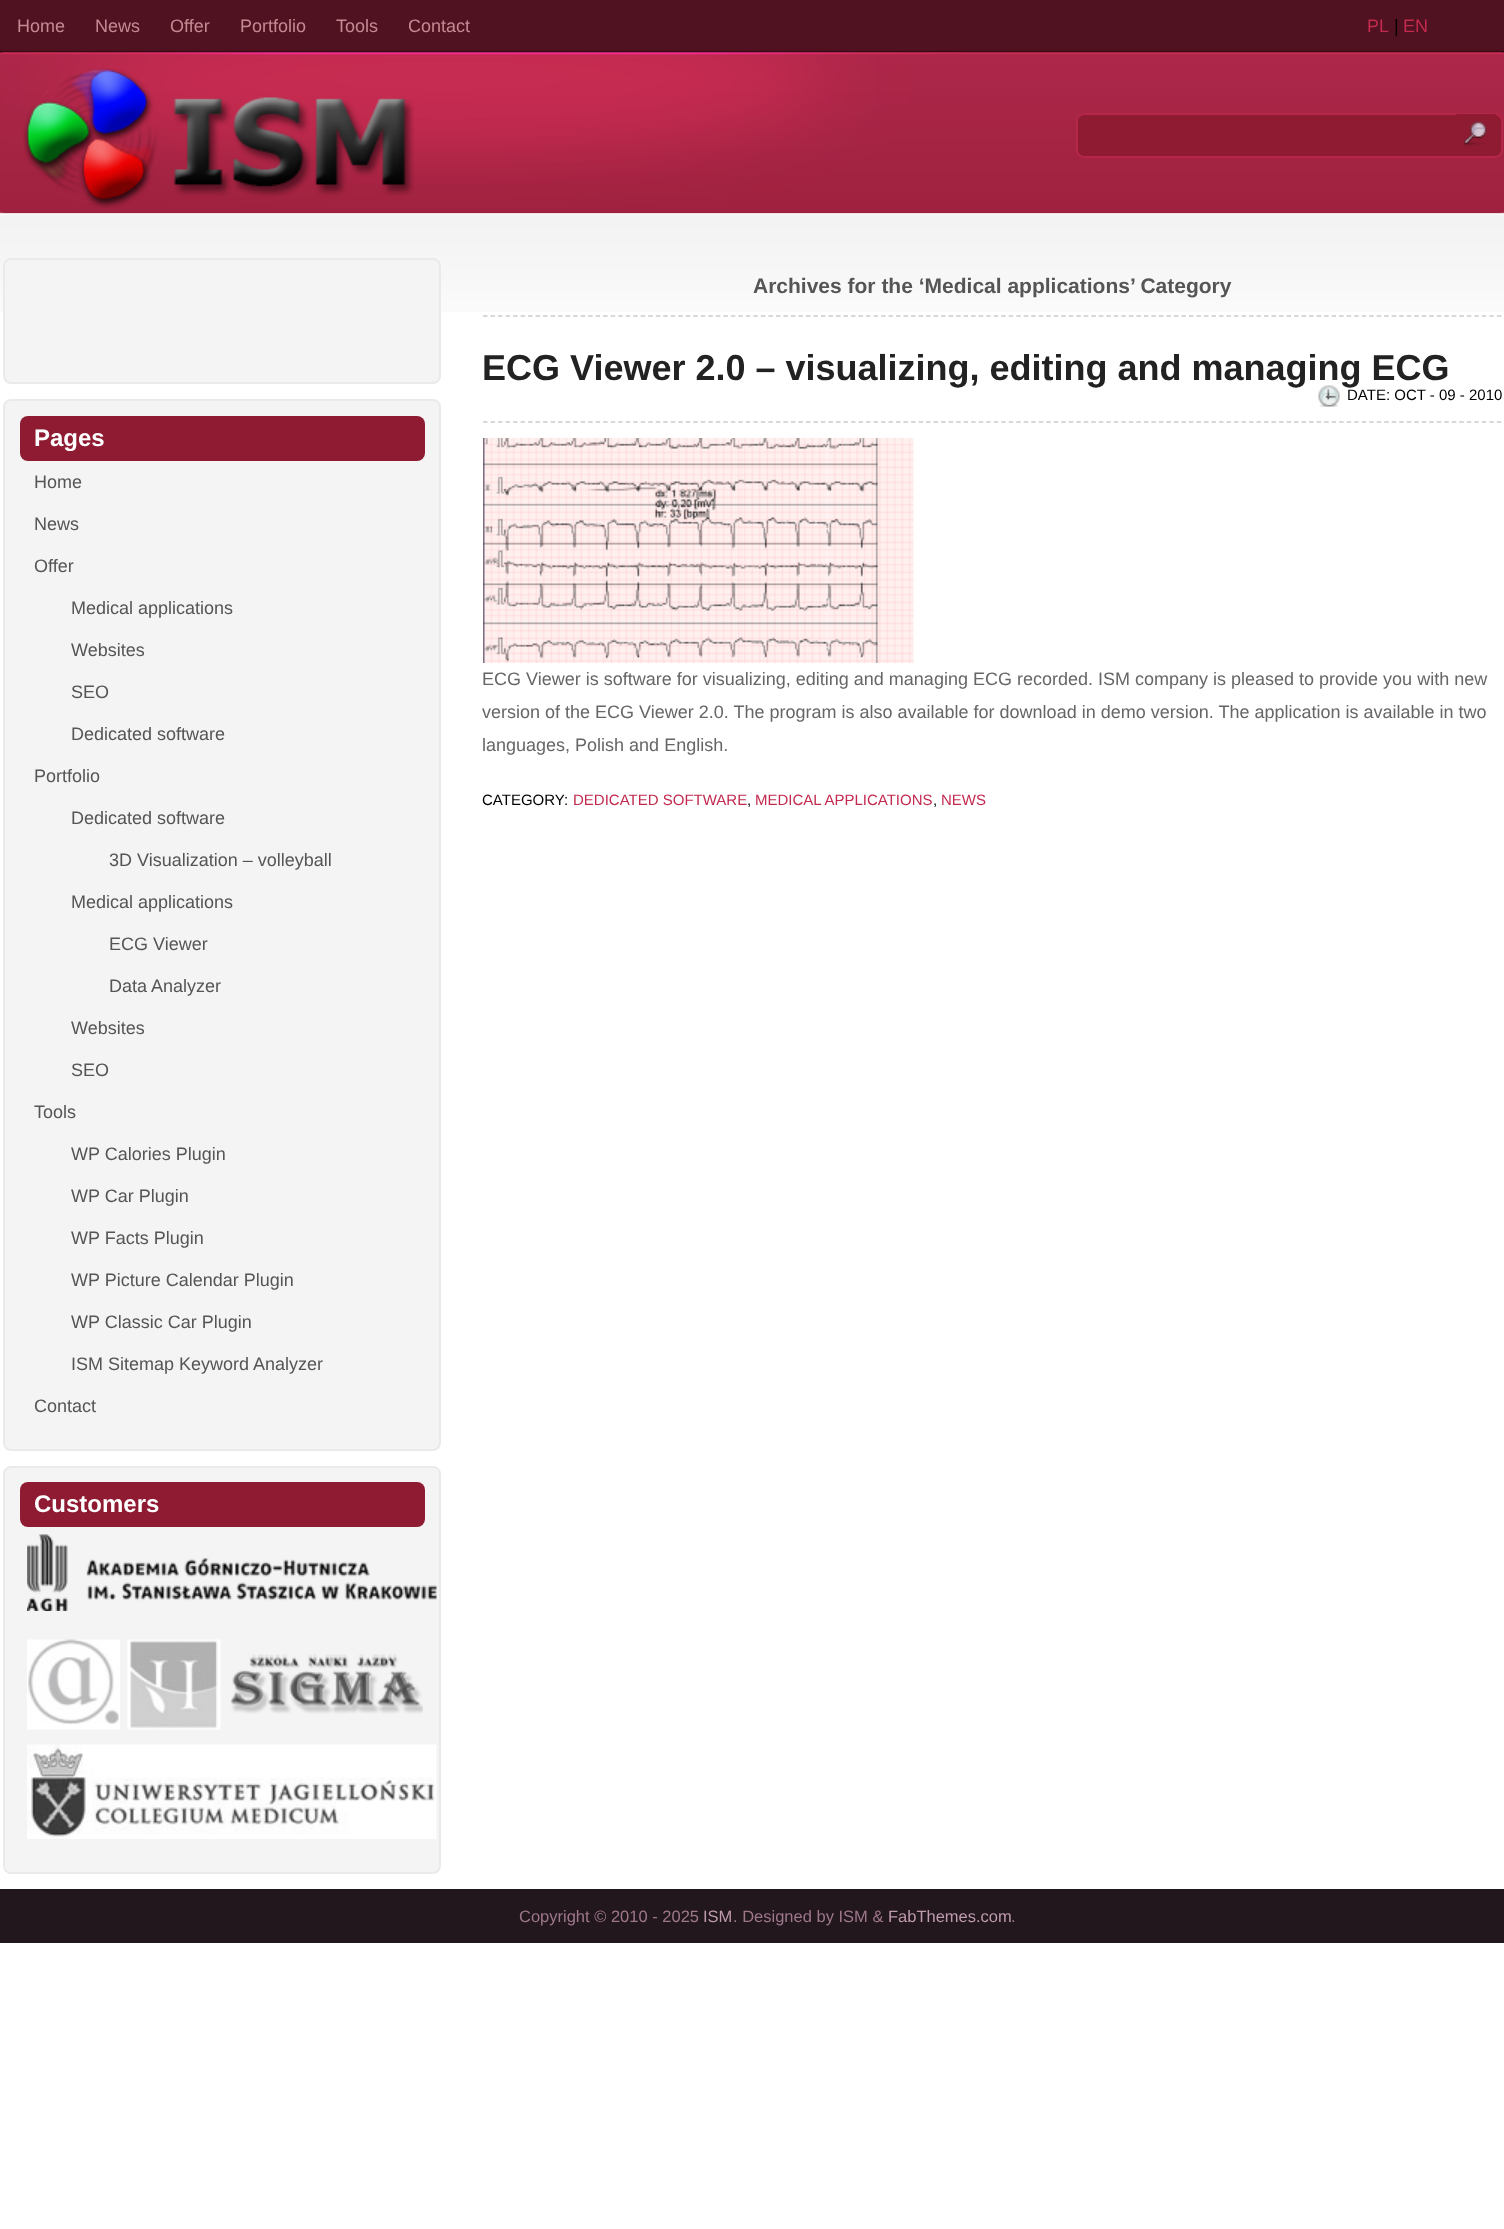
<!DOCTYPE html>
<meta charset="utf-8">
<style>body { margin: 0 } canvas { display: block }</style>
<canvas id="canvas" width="1504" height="2229"></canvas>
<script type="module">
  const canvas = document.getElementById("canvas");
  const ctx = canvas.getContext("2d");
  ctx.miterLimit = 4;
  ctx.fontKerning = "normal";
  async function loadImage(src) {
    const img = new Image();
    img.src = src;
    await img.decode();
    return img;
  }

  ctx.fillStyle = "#ffffff";
  ctx.fillRect(0, 0, 1504, 2229);
  ctx.drawImage(await loadImage("img1.png"), 0, 0, 1504, 312);
  ctx.font = "18px Liberation Sans";
  ctx.fillStyle = "#c48a93";
  ctx.fillText("Home", 17, 32);
  ctx.fillText("News", 95, 32);
  ctx.fillText("Offer", 170, 32);
  ctx.fillText("Portfolio", 240, 32);
  ctx.fillText("Tools", 336, 32);
  ctx.fillText("Contact", 408, 32);
  ctx.fillStyle = "#c32a4f";
  ctx.fillText("PL", 1367, 32);
  ctx.fillStyle = "#000000";
  ctx.fillText("|", 1394, 32);
  ctx.fillStyle = "#c32a4f";
  ctx.fillText("EN", 1403, 32);
  ctx.drawImage(await loadImage("img2.png"), 3, 52, 1499, 161);
  ctx.drawImage(await loadImage("img3.png"), 23, 68, 391, 140);
  ctx.fillStyle = "#8f1b32";
  ctx.beginPath();
  ctx.roundRect(1077, 114, 425, 43, 7);
  ctx.fill();
  ctx.strokeStyle = "#b52749";
  ctx.lineWidth = 2;
  ctx.stroke();
  ctx.drawImage(await loadImage("img4.png"), 1456, 114, 40, 32);
  ctx.fillStyle = "#f4f4f4";
  ctx.beginPath();
  ctx.roundRect(4, 259, 436, 124, 7);
  ctx.fill();
  ctx.strokeStyle = "#eaeaea";
  ctx.stroke();
  ctx.beginPath();
  ctx.roundRect(4, 400, 436, 1050, 7);
  ctx.fill();
  ctx.stroke();
  ctx.fillStyle = "#8f1b32";
  ctx.beginPath();
  ctx.roundRect(20, 416, 405, 45, 8);
  ctx.fill();
  ctx.font = "bold 24px Liberation Sans";
  ctx.fillStyle = "#ffffff";
  ctx.fillText("Pages", 34, 446);
  ctx.font = "18px Liberation Sans";
  ctx.fillStyle = "#555555";
  ctx.fillText("Home", 34, 488);
  ctx.fillText("News", 34, 530);
  ctx.fillText("Offer", 34, 572);
  ctx.fillText("Medical applications", 71, 614);
  ctx.fillText("Websites", 71, 656);
  ctx.fillText("SEO", 71, 698);
  ctx.fillText("Dedicated software", 71, 740);
  ctx.fillText("Portfolio", 34, 782);
  ctx.fillText("Dedicated software", 71, 824);
  ctx.fillText("3D Visualization – volleyball", 109, 866);
  ctx.fillText("Medical applications", 71, 908);
  ctx.fillText("ECG Viewer", 109, 950);
  ctx.fillText("Data Analyzer", 109, 992);
  ctx.fillText("Websites", 71, 1034);
  ctx.fillText("SEO", 71, 1076);
  ctx.fillText("Tools", 34, 1118);
  ctx.fillText("WP Calories Plugin", 71, 1160);
  ctx.fillText("WP Car Plugin", 71, 1202);
  ctx.fillText("WP Facts Plugin", 71, 1244);
  ctx.fillText("WP Picture Calendar Plugin", 71, 1286);
  ctx.fillText("WP Classic Car Plugin", 71, 1328);
  ctx.fillText("ISM Sitemap Keyword Analyzer", 71, 1370);
  ctx.fillText("Contact", 34, 1412);
  ctx.fillStyle = "#f4f4f4";
  ctx.beginPath();
  ctx.roundRect(4, 1467, 436, 406, 7);
  ctx.fill();
  ctx.stroke();
  ctx.fillStyle = "#8f1b32";
  ctx.beginPath();
  ctx.roundRect(20, 1482, 405, 45, 8);
  ctx.fill();
  ctx.font = "bold 24px Liberation Sans";
  ctx.fillStyle = "#ffffff";
  ctx.fillText("Customers", 34, 1512);
  ctx.drawImage(await loadImage("img5.png"), 27, 1534, 410, 77);
  ctx.drawImage(await loadImage("img6.png"), 27, 1639, 93, 91);
  ctx.drawImage(await loadImage("img7.png"), 127, 1639, 94, 91);
  ctx.drawImage(await loadImage("img8.png"), 230, 1654, 193, 60);
  ctx.drawImage(await loadImage("img9.png"), 27, 1744, 410, 95);
  ctx.beginPath();
  ctx.moveTo(483, 316);
  ctx.lineTo(1503, 316);
  ctx.strokeStyle = "#cccccc";
  ctx.lineWidth = 1.5;
  ctx.setLineDash([4.5, 3.01]);
  ctx.stroke();
  ctx.font = "bold 21px Liberation Sans";
  ctx.fillStyle = "#555555";
  ctx.fillText("Archives for the ‘Medical applications’ Category", 753, 293);
  ctx.beginPath();
  ctx.moveTo(483, 422);
  ctx.lineTo(1503, 422);
  ctx.stroke();
  ctx.font = "bold 36px Liberation Sans";
  ctx.fillStyle = "#222222";
  ctx.fillText("ECG Viewer 2.0 – visualizing, editing and managing ECG", 482, 380);
  ctx.drawImage(await loadImage("img10.png"), 1318, 385, 22, 22);
  ctx.font = "15px Liberation Sans";
  ctx.fillStyle = "#000000";
  ctx.fillText("DATE: OCT - 09 - 2010", 1347, 400);
  ctx.drawImage(await loadImage("img11.png"), 483, 438, 431, 225);
  ctx.font = "18px Liberation Sans";
  ctx.fillStyle = "#666666";
  ctx.fillText("ECG Viewer is software for visualizing, editing and managing ECG recorded. ISM company is pleased to provide you with new", 482, 685);
  ctx.fillText("version of the ECG Viewer 2.0. The program is also available for download in demo version. The application is available in two", 482, 718);
  ctx.fillText("languages, Polish and English.", 482, 751);
  ctx.font = "15px Liberation Sans";
  ctx.fillStyle = "#000000";
  ctx.fillText("CATEGORY:", 482, 805);
  ctx.fillStyle = "#c32a4f";
  ctx.fillText("DEDICATED SOFTWARE", 573, 805);
  ctx.fillStyle = "#000000";
  ctx.fillText(",", 747, 805);
  ctx.fillStyle = "#c32a4f";
  ctx.fillText("MEDICAL APPLICATIONS", 755, 805);
  ctx.fillStyle = "#000000";
  ctx.fillText(",", 933, 805);
  ctx.fillStyle = "#c32a4f";
  ctx.fillText("NEWS", 941, 805);
  ctx.fillStyle = "#21171c";
  ctx.fillRect(0, 1889, 1504, 54);
  ctx.font = "16.5px Liberation Sans";
  ctx.fillStyle = "#9f778b";
  ctx.fillText("Copyright © 2010 - 2025", 519, 1922);
  ctx.fillStyle = "#bf9bad";
  ctx.fillText("ISM", 703, 1922);
  ctx.fillStyle = "#9f778b";
  ctx.fillText(". Designed by ISM &", 733, 1922);
  ctx.fillStyle = "#bf9bad";
  ctx.fillText("FabThemes.com", 888, 1922);
  ctx.fillStyle = "#9f778b";
  ctx.fillText(".", 1011, 1922);
</script>
